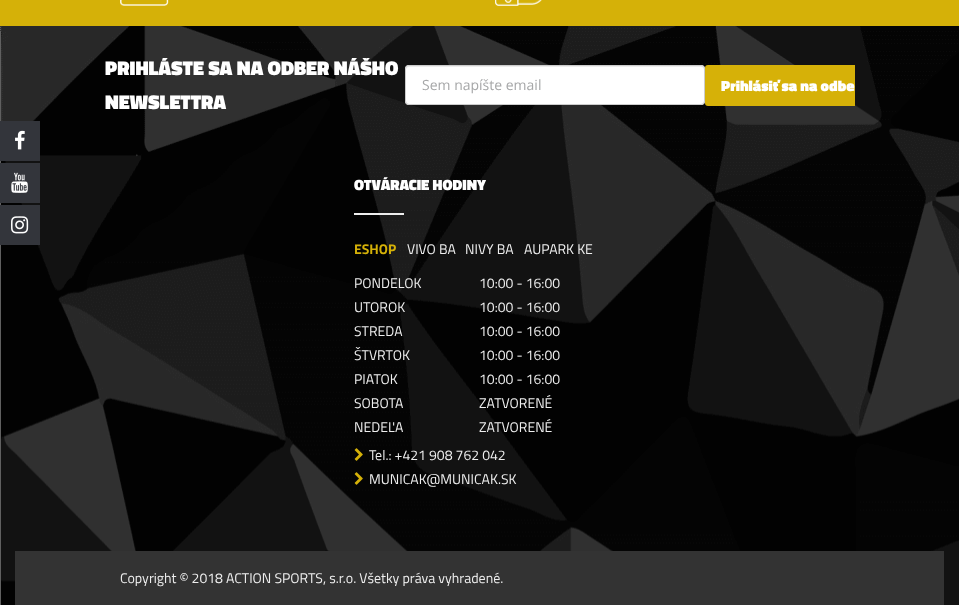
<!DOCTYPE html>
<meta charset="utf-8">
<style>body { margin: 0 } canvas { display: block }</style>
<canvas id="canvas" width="959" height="605"></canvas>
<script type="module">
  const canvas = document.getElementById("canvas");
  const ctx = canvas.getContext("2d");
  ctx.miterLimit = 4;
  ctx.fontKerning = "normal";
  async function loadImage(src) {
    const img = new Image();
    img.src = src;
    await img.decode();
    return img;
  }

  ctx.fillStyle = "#ffffff";
  ctx.fillRect(0, 0, 959, 605);
  ctx.fillStyle = "#d5b108";
  ctx.fillRect(0, 0, 959, 26);
  ctx.drawImage(await loadImage("img1.png"), 120, 0, 49, 6);
  ctx.drawImage(await loadImage("img2.png"), 495, 0, 47, 6);
  ctx.drawImage(await loadImage("img6.png"), 0, 26, 959, 579);
  ctx.fillStyle = "#33353b";
  ctx.fillRect(0, 121, 40, 40);
  ctx.drawImage(await loadImage("img3.png"), 15, 130, 10, 20);
  ctx.fillRect(0, 163, 40, 40);
  ctx.drawImage(await loadImage("img4.png"), 11, 172, 17, 21);
  ctx.fillRect(0, 205, 40, 40);
  ctx.drawImage(await loadImage("img5.png"), 11, 216, 18, 18);
  ctx.font = "900 20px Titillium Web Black";
  ctx.fillStyle = "#ffffff";
  ctx.fillText("PRIHLÁSTE SA NA ODBER NÁŠHO", 105, 75);
  ctx.fillText("NEWSLETTRA", 105, 109);
  ctx.beginPath();
  ctx.roundRect(405, 65, 300, 40, 4);
  ctx.fill();
  ctx.fillStyle = "#ececec";
  ctx.beginPath();
  ctx.moveTo(409, 67);
  ctx.lineTo(701, 67);
  ctx.bezierCurveTo(703, 67, 704, 68, 704, 70);
  ctx.lineTo(703, 67);
  ctx.lineTo(702, 66);
  ctx.lineTo(409, 66);
  ctx.bezierCurveTo(407, 66, 406, 68, 406, 70);
  ctx.bezierCurveTo(406, 68, 407, 67, 409, 67);
  ctx.closePath();
  ctx.fill();
  ctx.beginPath();
  ctx.roundRect(405.5, 65.5, 299, 39, 3.5);
  ctx.strokeStyle = "#cccccc";
  ctx.stroke();
  ctx.font = "14px Open Sans";
  ctx.fillStyle = "#a6a7a8";
  ctx.fillText("Sem napíšte email", 422, 90);
  ctx.fillStyle = "#d6b108";
  ctx.beginPath();
  ctx.roundRect(705, 65, 150, 41, [3, 0, 0, 3]);
  ctx.fill();
  ctx.font = "900 15px Titillium Web Black";
  ctx.fillStyle = "#ffffff";
  ctx.fillText("Prihlásiť sa na odbe", 721, 91);
  ctx.fillText("OTVÁRACIE HODINY", 354, 190);
  ctx.fillStyle = "#eeeeee";
  ctx.fillRect(354, 213, 50, 2);
  ctx.font = "bold 14px Titillium Web";
  ctx.fillStyle = "#d5b108";
  ctx.fillText("ESHOP", 354, 254);
  ctx.font = "14px Titillium Web";
  ctx.fillStyle = "#eeeeee";
  ctx.fillText("VIVO BA", 407, 254);
  ctx.fillText("NIVY BA", 465, 254);
  ctx.fillText("AUPARK KE", 524, 254);
  ctx.fillText("PONDELOK", 354, 288);
  ctx.fillText("10:00 - 16:00", 479, 288);
  ctx.fillText("UTOROK", 354, 312);
  ctx.fillText("10:00 - 16:00", 479, 312);
  ctx.fillText("STREDA", 354, 336);
  ctx.fillText("10:00 - 16:00", 479, 336);
  ctx.fillText("ŠTVRTOK", 354, 360);
  ctx.fillText("10:00 - 16:00", 479, 360);
  ctx.fillText("PIATOK", 354, 384);
  ctx.fillText("10:00 - 16:00", 479, 384);
  ctx.fillText("SOBOTA", 354, 408);
  ctx.fillText("ZATVORENÉ", 479, 408);
  ctx.fillText("NEDEĽA", 354, 432);
  ctx.fillText("ZATVORENÉ", 479, 432);
  ctx.drawImage(await loadImage("img7.png"), 354, 448, 9, 13);
  ctx.fillText("Tel.: +421 908 762 042", 369, 460);
  ctx.drawImage(await loadImage("img8.png"), 354, 472, 9, 13);
  ctx.fillText("MUNICAK@MUNICAK.SK", 369, 484);
  ctx.fillStyle = "#333333";
  ctx.fillRect(15, 551, 929, 54);
  ctx.fillStyle = "#eeeeee";
  ctx.fillText("Copyright © 2018 ACTION SPORTS, s.r.o. Všetky práva vyhradené.", 120, 583);
</script>
